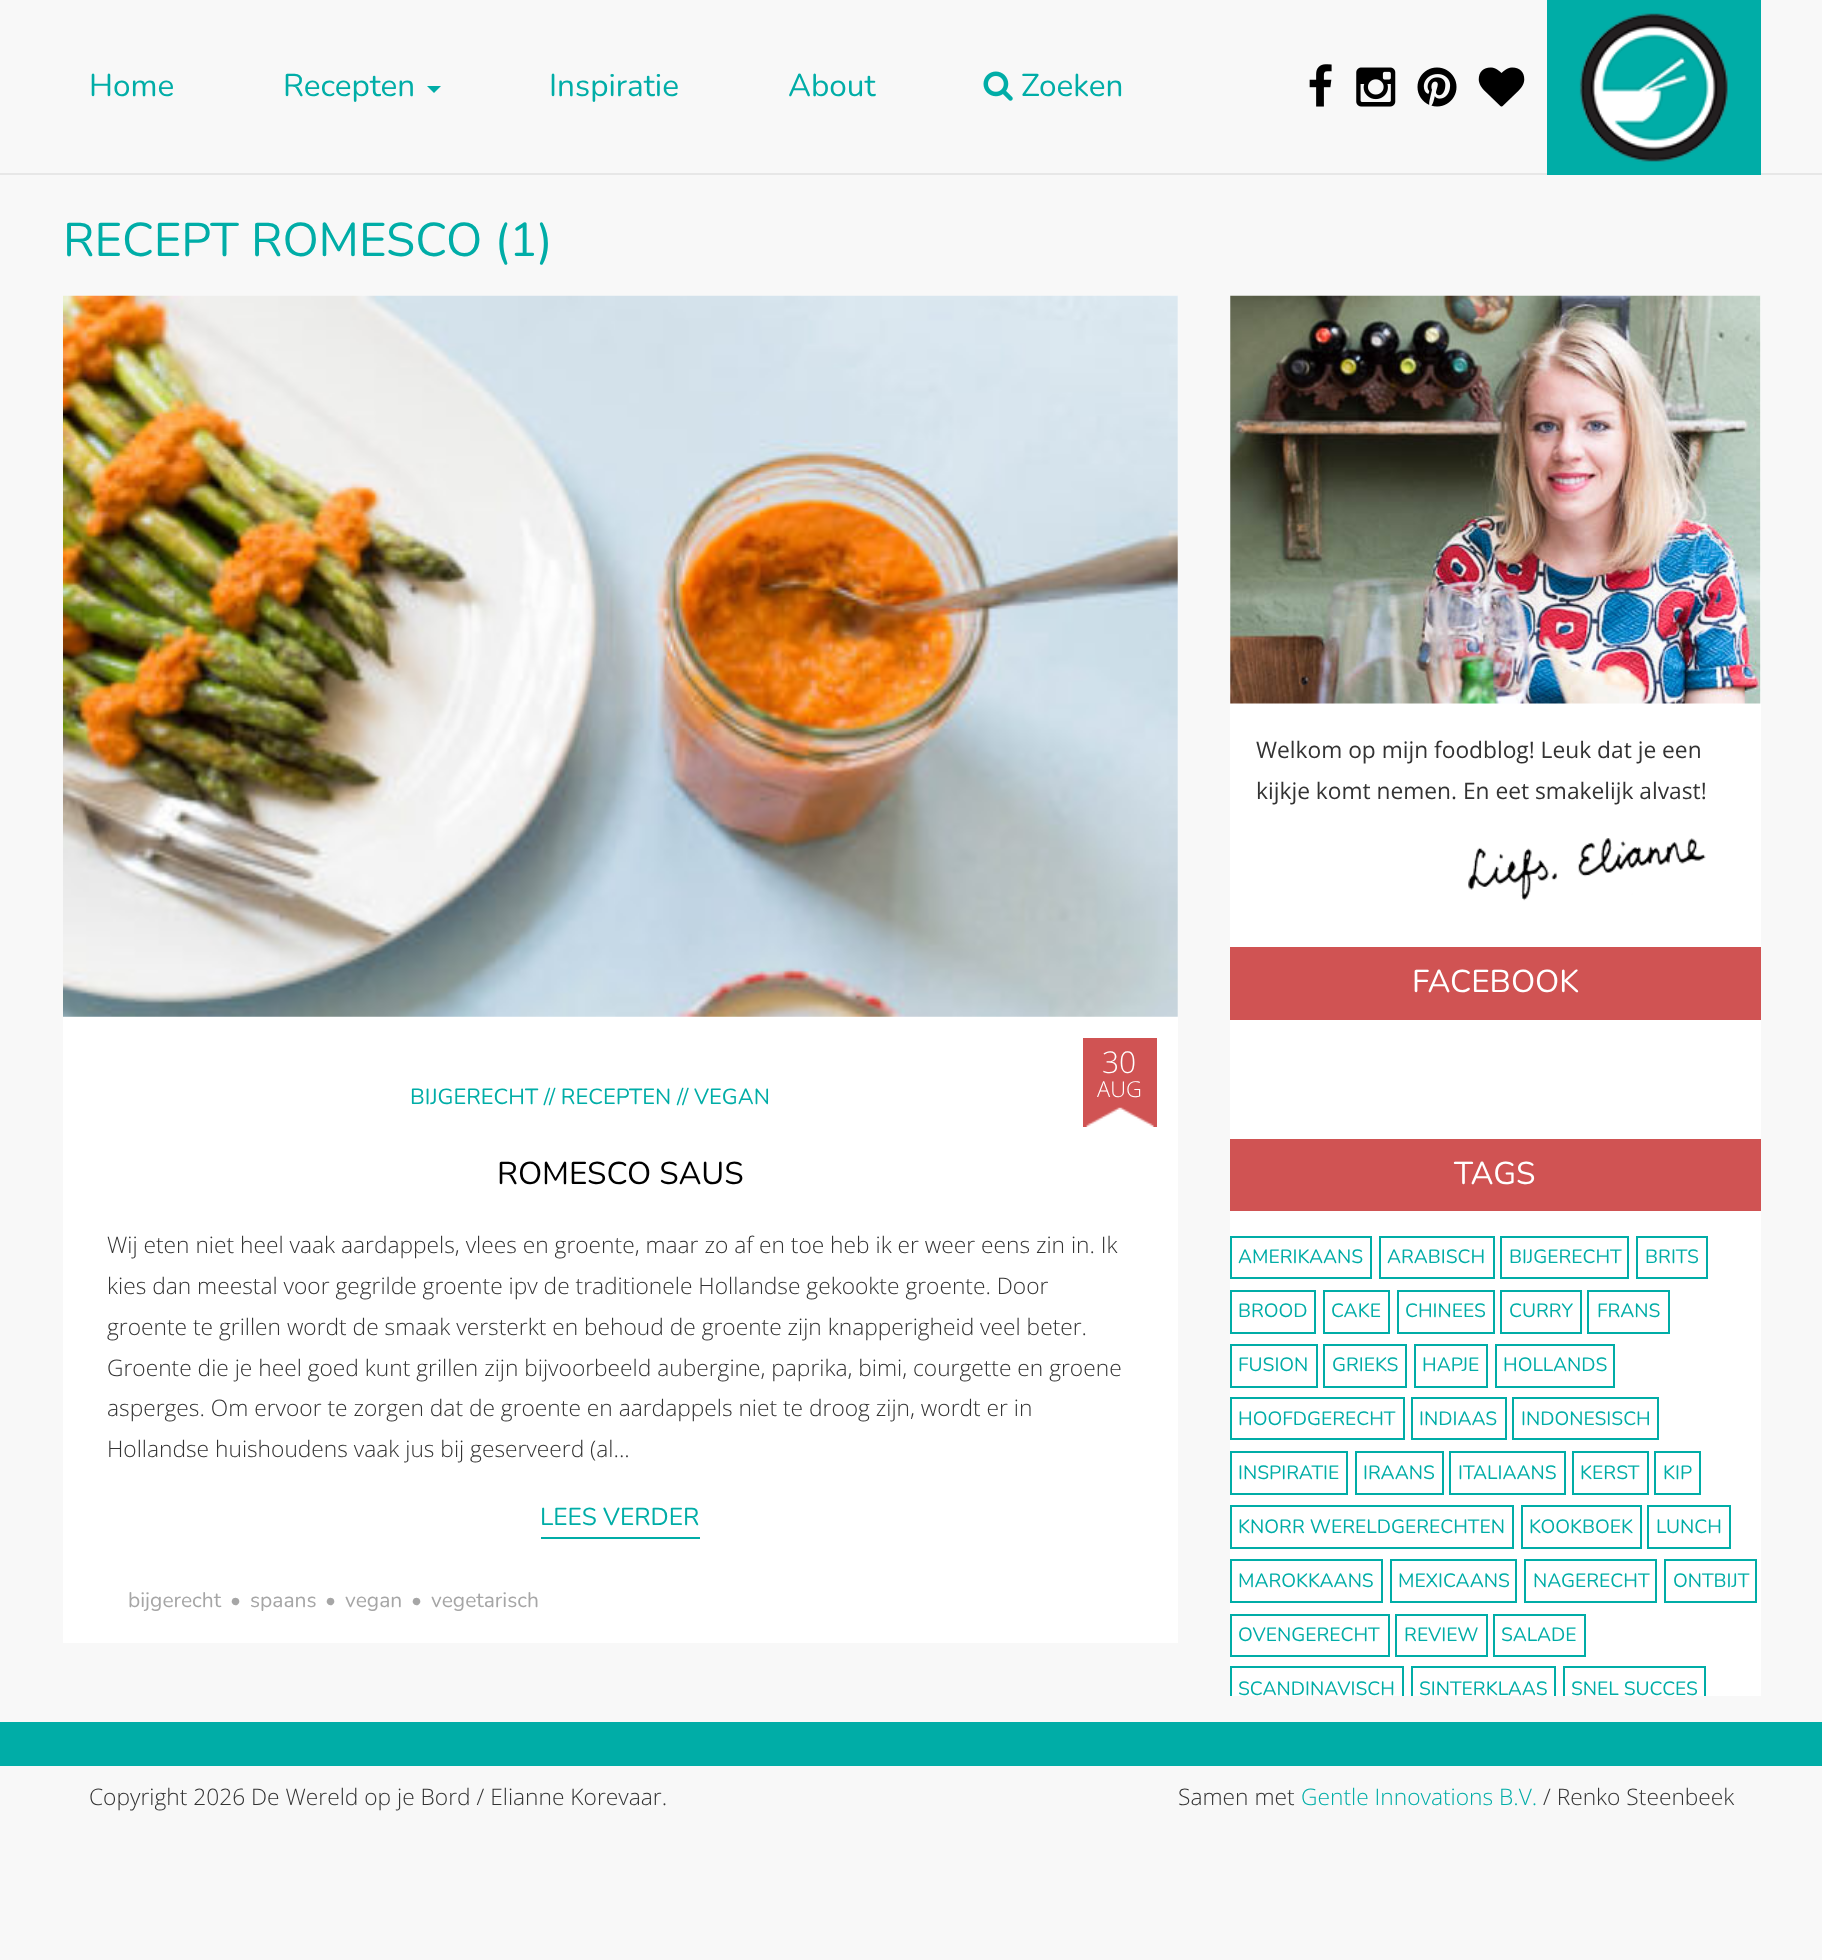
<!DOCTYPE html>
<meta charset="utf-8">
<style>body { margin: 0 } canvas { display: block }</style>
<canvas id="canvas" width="1822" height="1960"></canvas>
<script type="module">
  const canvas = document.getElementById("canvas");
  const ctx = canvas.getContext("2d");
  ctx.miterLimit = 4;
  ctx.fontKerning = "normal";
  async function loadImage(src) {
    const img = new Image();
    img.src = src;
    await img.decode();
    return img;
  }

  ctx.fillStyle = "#f8f8f8";
  ctx.fillRect(0, 0, 1822, 1960);
  ctx.fillStyle = "#e7e7e7";
  ctx.fillRect(0, 173, 1822, 2);
  ctx.font = "200 31.5px Nunito";
  ctx.fillStyle = "#00ada7";
  ctx.fillText("Home", 89, 96);
  ctx.fillText("Recepten", 283, 96);
  ctx.beginPath();
  ctx.moveTo(427, 86);
  ctx.lineTo(441, 86);
  ctx.lineTo(434, 93);
  ctx.closePath();
  ctx.fill();
  ctx.fillText("Inspiratie", 549, 96);
  ctx.fillText("About", 788, 96);
  ctx.drawImage(await loadImage("img1.png"), 983, 71, 30, 30);
  ctx.fillText("Zoeken", 1021, 96);
  ctx.drawImage(await loadImage("img2.png"), 1309, 64, 23, 43);
  ctx.drawImage(await loadImage("img3.png"), 1356, 67, 40, 40);
  ctx.drawImage(await loadImage("img4.png"), 1417, 67, 40, 40);
  ctx.drawImage(await loadImage("img5.png"), 1478, 67, 47, 40);
  ctx.fillRect(1547, 0, 214, 175);
  ctx.drawImage(await loadImage("img6.png"), 1579, 13, 149, 149);
  ctx.font = "200 47.25px Nunito";
  ctx.fillText("RECEPT ROMESCO (1)", 63, 256);
  ctx.fillStyle = "#ffffff";
  ctx.fillRect(63, 296, 1115, 1347);
  ctx.drawImage(await loadImage("img7.png"), 63, 295, 1115, 722);
  ctx.font = "200 21.9px Nunito";
  ctx.fillStyle = "#00ada7";
  ctx.fillText("BIJGERECHT // RECEPTEN // VEGAN", 410, 1104);
  ctx.fillStyle = "#d05353";
  ctx.fillRect(1083, 1038, 74, 89);
  ctx.font = "300 30px Open Sans";
  ctx.fillStyle = "#ffffff";
  ctx.fillText("30", 1102, 1073);
  ctx.drawImage(await loadImage("img8.png"), 1086, 1107, 68, 20);
  ctx.font = "300 21.9px Open Sans";
  ctx.fillText("AUG", 1097, 1097);
  ctx.font = "200 31.5px Nunito";
  ctx.fillStyle = "#000000";
  ctx.fillText("ROMESCO SAUS", 497, 1184);
  ctx.font = "300 22.75px Open Sans";
  ctx.fillStyle = "#333333";
  ctx.fillText("Wij eten niet heel vaak aardappels, vlees en groente, maar zo af en toe heb ik er weer eens zin in. Ik", 107, 1253);
  ctx.fillText("kies dan meestal voor gegrilde groente ipv de traditionele Hollandse gekookte groente. Door", 107, 1294);
  ctx.fillText("groente te grillen wordt de smaak versterkt en behoud de groente zijn knapperigheid veel beter.", 107, 1335);
  ctx.fillText("Groente die je heel goed kunt grillen zijn bijvoorbeeld aubergine, paprika, bimi, courgette en groene", 107, 1376);
  ctx.fillText("asperges. Om ervoor te zorgen dat de groente en aardappels niet te droog zijn, wordt er in", 107, 1416);
  ctx.fillText("Hollandse huishoudens vaak jus bij geserveerd (al...", 107, 1457);
  ctx.font = "200 24.5px Nunito";
  ctx.fillStyle = "#00ada7";
  ctx.fillText("LEES VERDER", 540, 1525);
  ctx.fillRect(541, 1537, 159, 2);
  ctx.font = "200 21px Nunito";
  ctx.fillStyle = "#a6a6a6";
  ctx.fillText("bijgerecht", 128, 1607);
  ctx.fillText("•", 230, 1607);
  ctx.fillText("spaans", 250, 1607);
  ctx.fillText("•", 325, 1607);
  ctx.fillText("vegan", 345, 1607);
  ctx.fillText("•", 411, 1607);
  ctx.fillText("vegetarisch", 431, 1607);
  ctx.fillStyle = "#ffffff";
  ctx.fillRect(1230, 296, 531, 1400);
  ctx.drawImage(await loadImage("img9.png"), 1230, 295, 531, 409);
  ctx.font = "22.75px Open Sans";
  ctx.fillStyle = "#333333";
  ctx.fillText("Welkom op mijn foodblog! Leuk dat je een", 1256, 758);
  ctx.fillText("kijkje komt nemen. En eet smakelijk alvast!", 1256, 799);
  ctx.drawImage(await loadImage("img10.png"), 1468, 838, 238, 63);
  ctx.fillStyle = "#d05353";
  ctx.fillRect(1230, 947, 531, 73);
  ctx.font = "200 31.5px Nunito";
  ctx.fillStyle = "#ffffff";
  ctx.fillText("FACEBOOK", 1412, 992);
  ctx.fillStyle = "#d05353";
  ctx.fillRect(1230, 1139, 531, 72);
  ctx.fillStyle = "#ffffff";
  ctx.fillText("TAGS", 1454, 1184);
  ctx.strokeStyle = "#00ada7";
  ctx.lineWidth = 2;
  ctx.strokeRect(1231, 1237, 140, 41);
  ctx.font = "200 19.25px Nunito";
  ctx.fillStyle = "#00ada7";
  ctx.fillText("AMERIKAANS", 1238, 1263);
  ctx.strokeRect(1380, 1237, 114, 41);
  ctx.fillText("ARABISCH", 1387, 1263);
  ctx.strokeRect(1501, 1237, 127, 41);
  ctx.fillText("BIJGERECHT", 1509, 1263);
  ctx.strokeRect(1637, 1237, 70, 41);
  ctx.fillText("BRITS", 1645, 1263);
  ctx.strokeRect(1231, 1291, 84, 42);
  ctx.fillText("BROOD", 1238, 1317);
  ctx.strokeRect(1324, 1291, 65, 42);
  ctx.fillText("CAKE", 1331, 1317);
  ctx.strokeRect(1398, 1291, 96, 42);
  ctx.fillText("CHINEES", 1405, 1317);
  ctx.strokeRect(1501, 1291, 80, 42);
  ctx.fillText("CURRY", 1509, 1317);
  ctx.strokeRect(1588, 1291, 81, 42);
  ctx.fillText("FRANS", 1597, 1317);
  ctx.strokeRect(1231, 1345, 86, 42);
  ctx.fillText("FUSION", 1238, 1371);
  ctx.strokeRect(1324, 1345, 82, 42);
  ctx.fillText("GRIEKS", 1332, 1371);
  ctx.strokeRect(1415, 1345, 72, 42);
  ctx.fillText("HAPJE", 1422, 1371);
  ctx.strokeRect(1496, 1345, 118, 42);
  ctx.fillText("HOLLANDS", 1503, 1371);
  ctx.strokeRect(1231, 1398, 173, 41);
  ctx.fillText("HOOFDGERECHT", 1238, 1425);
  ctx.strokeRect(1412, 1398, 94, 41);
  ctx.fillText("INDIAAS", 1419, 1425);
  ctx.strokeRect(1513, 1398, 145, 41);
  ctx.fillText("INDONESISCH", 1521, 1425);
  ctx.strokeRect(1231, 1452, 116, 42);
  ctx.fillText("INSPIRATIE", 1238, 1479);
  ctx.strokeRect(1356, 1452, 87, 42);
  ctx.fillText("IRAANS", 1363, 1479);
  ctx.strokeRect(1450, 1452, 115, 42);
  ctx.fillText("ITALIAANS", 1458, 1479);
  ctx.strokeRect(1573, 1452, 75, 42);
  ctx.fillText("KERST", 1580, 1479);
  ctx.strokeRect(1655, 1452, 45, 42);
  ctx.fillText("KIP", 1663, 1479);
  ctx.strokeRect(1231, 1506, 282, 42);
  ctx.fillText("KNORR WERELDGERECHTEN", 1238, 1533);
  ctx.strokeRect(1522, 1506, 119, 42);
  ctx.fillText("KOOKBOEK", 1529, 1533);
  ctx.strokeRect(1648, 1506, 82, 42);
  ctx.fillText("LUNCH", 1656, 1533);
  ctx.strokeRect(1231, 1560, 151, 42);
  ctx.fillText("MAROKKAANS", 1238, 1587);
  ctx.strokeRect(1391, 1560, 125, 42);
  ctx.fillText("MEXICAANS", 1398, 1587);
  ctx.strokeRect(1525, 1560, 131, 42);
  ctx.fillText("NAGERECHT", 1533, 1587);
  ctx.strokeRect(1665, 1560, 91, 42);
  ctx.fillText("ONTBIJT", 1673, 1587);
  ctx.strokeRect(1231, 1615, 158, 41);
  ctx.fillText("OVENGERECHT", 1238, 1641);
  ctx.strokeRect(1396, 1615, 91, 41);
  ctx.fillText("REVIEW", 1404, 1641);
  ctx.strokeRect(1494, 1615, 91, 41);
  ctx.fillText("SALADE", 1501, 1641);
  ctx.save();
  ctx.beginPath();
  ctx.rect(63, 175, 1698, 1521);
  ctx.clip();
  ctx.strokeRect(1231, 1667, 172, 42);
  ctx.restore();
  ctx.fillText("SCANDINAVISCH", 1238, 1695);
  ctx.save();
  ctx.beginPath();
  ctx.rect(63, 175, 1698, 1521);
  ctx.clip();
  ctx.strokeRect(1412, 1667, 143, 42);
  ctx.restore();
  ctx.fillText("SINTERKLAAS", 1419, 1695);
  ctx.save();
  ctx.beginPath();
  ctx.rect(63, 175, 1698, 1521);
  ctx.clip();
  ctx.strokeRect(1564, 1667, 141, 42);
  ctx.restore();
  ctx.fillText("SNEL SUCCES", 1571, 1695);
  ctx.fillRect(0, 1722, 1822, 44);
  ctx.font = "300 22.75px Open Sans";
  ctx.fillStyle = "#333333";
  ctx.fillText("Copyright 2026 De Wereld op je Bord / Elianne Korevaar.", 89, 1805);
  ctx.fillText("Samen met", 1178, 1805);
  ctx.fillStyle = "#00ada7";
  ctx.fillText("Gentle Innovations B.V.", 1301, 1805);
  ctx.fillStyle = "#333333";
  ctx.fillText("/ Renko Steenbeek", 1543, 1805);
</script>
